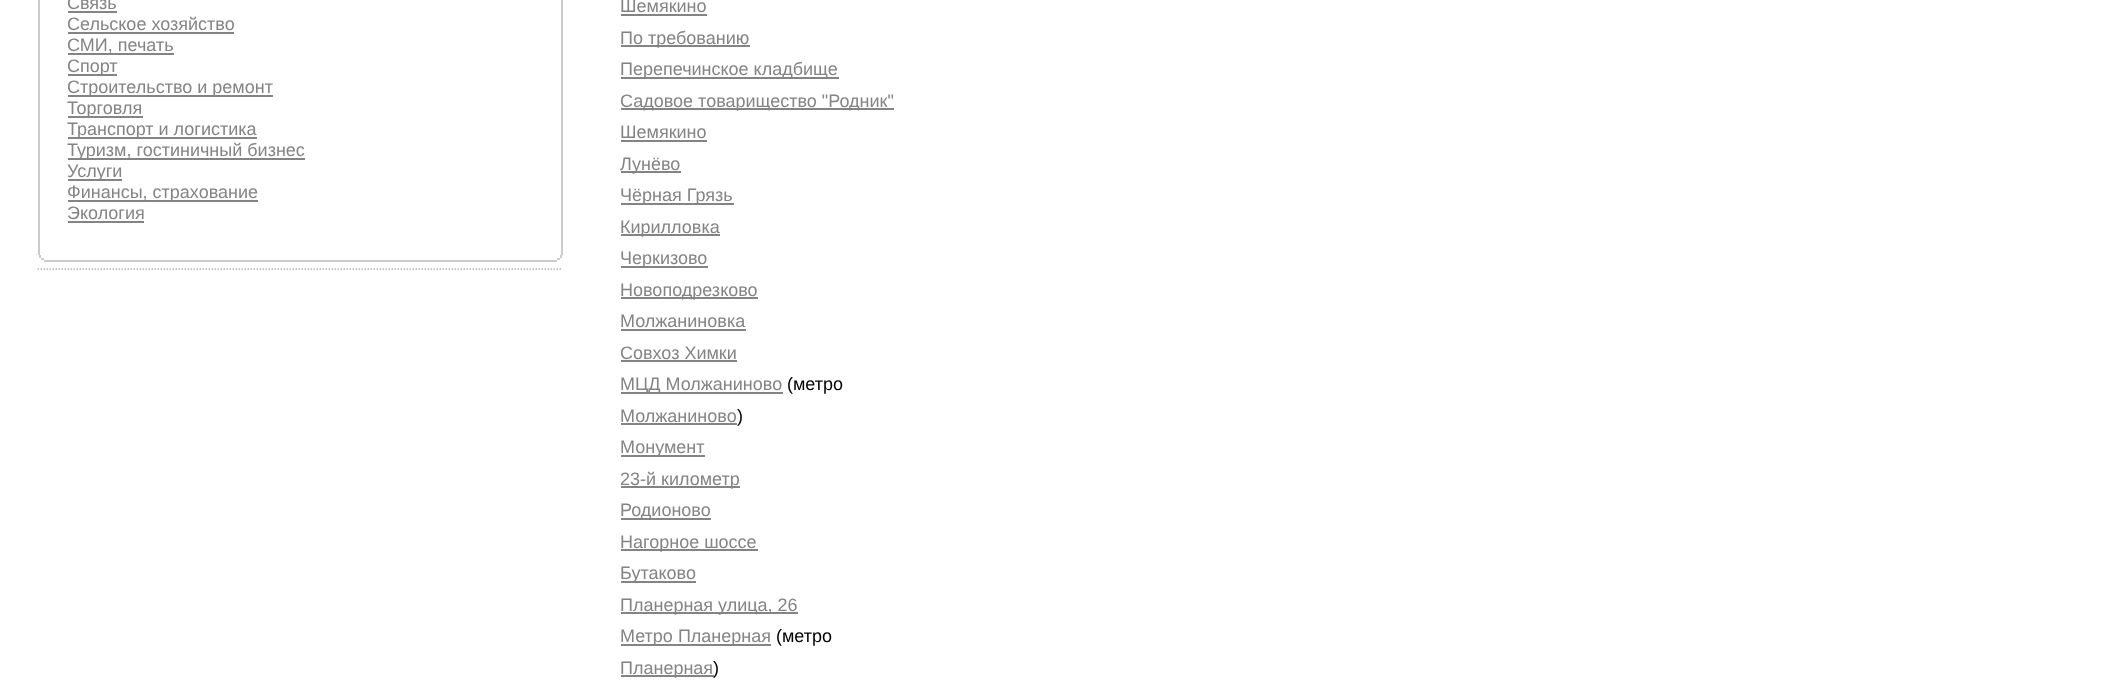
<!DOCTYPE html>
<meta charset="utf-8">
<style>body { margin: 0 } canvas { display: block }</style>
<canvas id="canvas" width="2113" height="684"></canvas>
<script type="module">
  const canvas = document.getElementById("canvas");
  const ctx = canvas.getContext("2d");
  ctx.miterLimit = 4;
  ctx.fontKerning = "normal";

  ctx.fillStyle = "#ffffff";
  ctx.fillRect(0, 0, 2113, 684);
  ctx.fillStyle = "#cccccc";
  ctx.fillRect(561, 0, 2, 255);
  ctx.fillRect(38, 0, 2, 255);
  ctx.font = "18px Liberation Sans";
  ctx.fillStyle = "#848484";
  ctx.fillText("Связь", 67, 9);
  ctx.fillRect(68, 11, 49, 2);
  ctx.fillText("Сельское хозяйство", 67, 30);
  ctx.fillRect(68, 32, 166, 2);
  ctx.fillRect(68, 53, 106, 2);
  ctx.fillText("СМИ, печать", 67, 51);
  ctx.fillRect(68, 74, 49, 2);
  ctx.fillText("Спорт", 67, 72);
  ctx.fillRect(68, 95, 205, 2);
  ctx.fillText("Строительство и ремонт", 67, 93);
  ctx.fillRect(68, 116, 75, 2);
  ctx.fillText("Торговля", 67, 114);
  ctx.fillRect(68, 137, 189, 2);
  ctx.fillText("Транспорт и логистика", 67, 135);
  ctx.fillRect(68, 158, 237, 2);
  ctx.fillText("Туризм, гостиничный бизнес", 67, 156);
  ctx.fillRect(68, 179, 54, 2);
  ctx.fillText("Услуги", 67, 177);
  ctx.fillRect(68, 200, 190, 2);
  ctx.fillText("Финансы, страхование", 67, 198);
  ctx.fillText("Экология", 67, 219);
  ctx.fillRect(68, 221, 76, 2);
  ctx.fillStyle = "#cccccc";
  ctx.fillRect(560, 255, 2, 3);
  ctx.fillRect(39, 255, 2, 3);
  ctx.fillRect(557, 258, 3, 2);
  ctx.fillRect(41, 258, 3, 2);
  ctx.fillRect(44, 260, 513, 2);
  ctx.beginPath();
  ctx.moveTo(37.5, 269);
  ctx.lineTo(562.5, 269);
  ctx.strokeStyle = "#b3b3b3";
  ctx.lineWidth = 1.5;
  ctx.setLineDash([1.5, 1.5]);
  ctx.stroke();
  ctx.fillStyle = "#848484";
  ctx.fillText("Шемякино", 620, 12);
  ctx.fillRect(621, 14, 86, 2);
  ctx.fillRect(621, 45, 129, 2);
  ctx.fillText("По требованию", 620, 44);
  ctx.fillRect(621, 77, 218, 2);
  ctx.fillText("Перепечинское кладбище", 620, 75);
  ctx.fillRect(621, 108, 273, 2);
  ctx.fillText("Садовое товарищество \"Родник\"", 620, 107);
  ctx.fillText("Шемякино", 620, 138);
  ctx.fillRect(621, 140, 86, 2);
  ctx.fillRect(621, 171, 60, 2);
  ctx.fillText("Лунёво", 620, 170);
  ctx.fillRect(621, 203, 113, 2);
  ctx.fillText("Чёрная Грязь", 620, 201);
  ctx.fillRect(621, 234, 99, 2);
  ctx.fillText("Кирилловка", 620, 233);
  ctx.fillRect(621, 266, 87, 2);
  ctx.fillText("Черкизово", 620, 264);
  ctx.fillRect(621, 297, 137, 2);
  ctx.fillText("Новоподрезково", 620, 296);
  ctx.fillText("Молжаниновка", 620, 327);
  ctx.fillRect(621, 329, 125, 2);
  ctx.fillText("Совхоз Химки", 620, 359);
  ctx.fillRect(621, 360, 116, 2);
  ctx.fillRect(621, 392, 162, 2);
  ctx.fillText("МЦД Молжаниново", 620, 390);
  ctx.fillStyle = "#000000";
  ctx.fillText("(метро", 787, 390);
  ctx.fillStyle = "#848484";
  ctx.fillText("Молжаниново", 620, 422);
  ctx.fillRect(621, 423, 116, 2);
  ctx.fillStyle = "#000000";
  ctx.fillText(")", 737, 422);
  ctx.fillStyle = "#848484";
  ctx.fillRect(621, 455, 84, 2);
  ctx.fillText("Монумент", 620, 453);
  ctx.fillRect(621, 486, 119, 2);
  ctx.fillText("23-й километр", 620, 485);
  ctx.fillRect(621, 518, 90, 2);
  ctx.fillText("Родионово", 620, 516);
  ctx.fillRect(621, 549, 137, 2);
  ctx.fillText("Нагорное шоссе", 620, 548);
  ctx.fillRect(621, 581, 75, 2);
  ctx.fillText("Бутаково", 620, 579);
  ctx.fillRect(621, 612, 177, 2);
  ctx.fillText("Планерная улица, 26", 620, 611);
  ctx.fillRect(621, 644, 150, 2);
  ctx.fillText("Метро Планерная", 620, 642);
  ctx.fillStyle = "#000000";
  ctx.fillText("(метро", 776, 642);
  ctx.fillStyle = "#848484";
  ctx.fillRect(621, 675, 93, 2);
  ctx.fillText("Планерная", 620, 674);
  ctx.fillStyle = "#000000";
  ctx.fillText(")", 713, 674);
</script>
